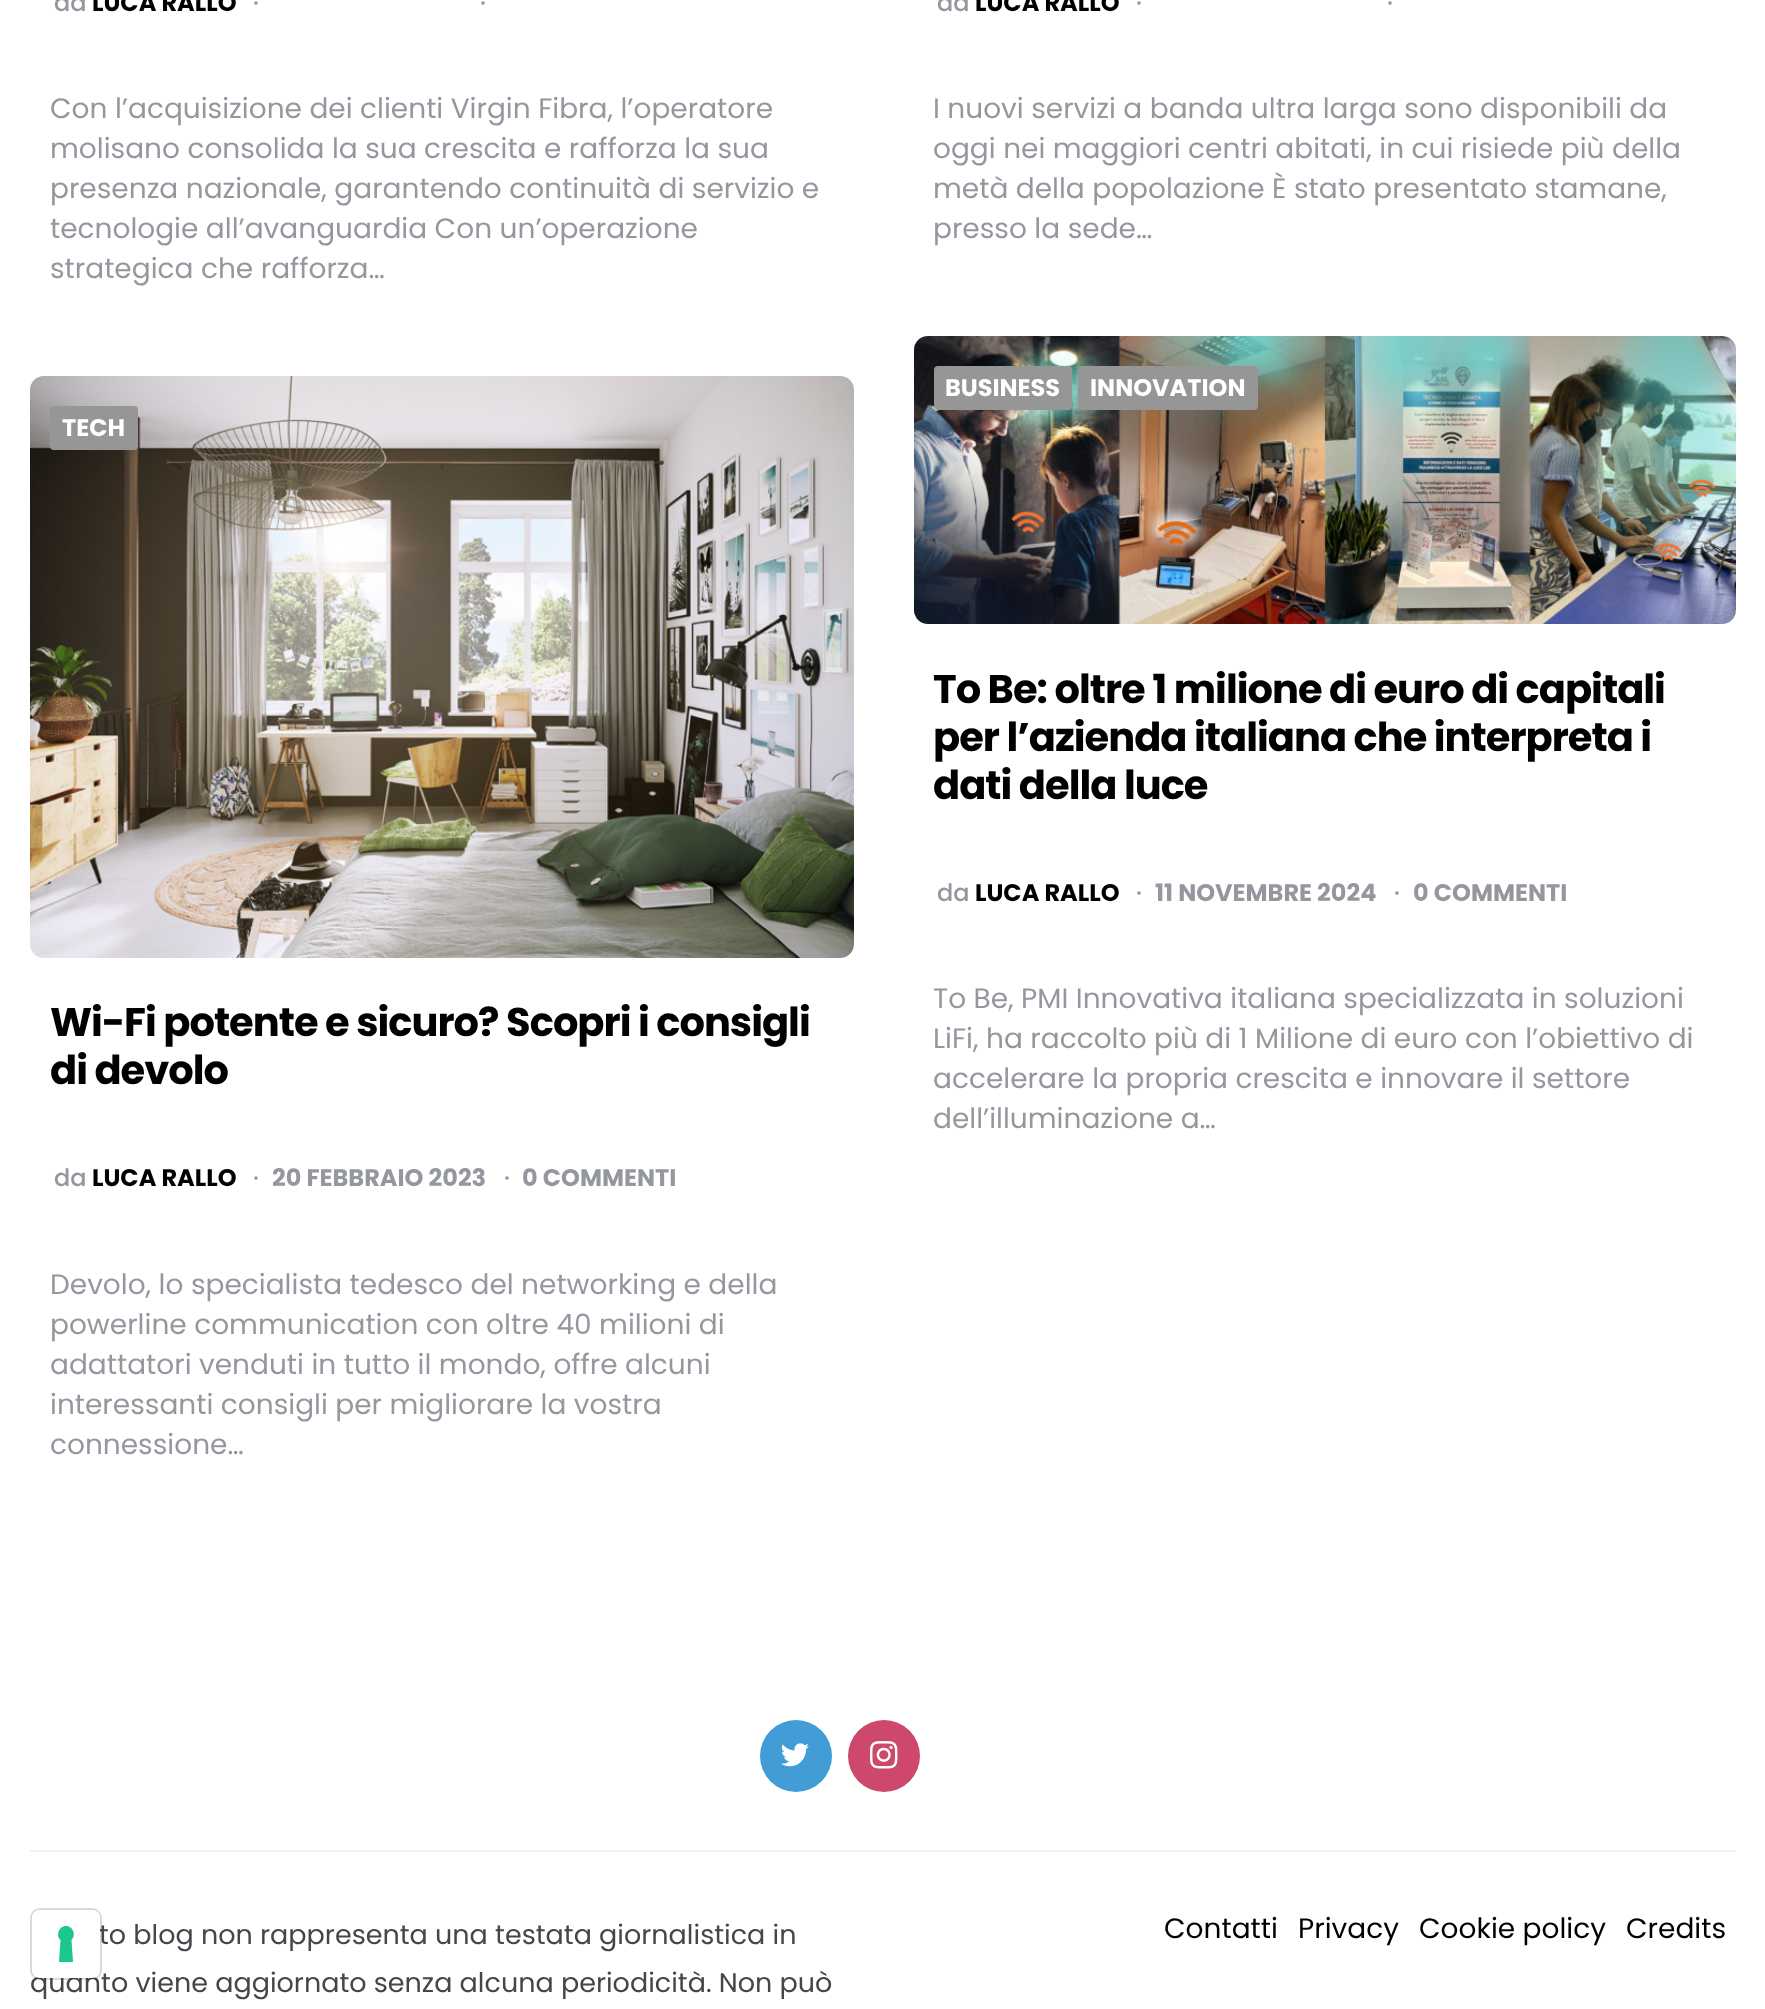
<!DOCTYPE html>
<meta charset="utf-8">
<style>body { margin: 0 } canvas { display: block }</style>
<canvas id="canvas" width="1765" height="2009"></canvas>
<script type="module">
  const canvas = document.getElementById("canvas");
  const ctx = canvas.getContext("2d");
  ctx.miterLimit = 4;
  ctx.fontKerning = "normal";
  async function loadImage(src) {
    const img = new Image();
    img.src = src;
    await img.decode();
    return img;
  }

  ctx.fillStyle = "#ffffff";
  ctx.fillRect(0, 0, 1765, 2009);
  ctx.font = "500 24px Poppins";
  ctx.fillStyle = "#94979e";
  ctx.fillText("da", 54, 11);
  ctx.font = "bold 24px Poppins";
  ctx.fillStyle = "#000000";
  ctx.fillText("LUCA RALLO", 92, 11);
  ctx.font = "500 24px Poppins";
  ctx.fillStyle = "#94979e";
  ctx.fillText("·", 253, 11);
  ctx.fillText("·", 480, 11);
  ctx.font = "28px Poppins";
  ctx.fillText("Con l’acquisizione dei clienti Virgin Fibra, l’operatore", 50, 118);
  ctx.fillText("molisano consolida la sua crescita e rafforza la sua", 50, 158);
  ctx.fillText("presenza nazionale, garantendo continuità di servizio e", 50, 198);
  ctx.fillText("tecnologie all’avanguardia Con un’operazione", 50, 238);
  ctx.fillText("strategica che rafforza…", 50, 278);
  ctx.font = "500 24px Poppins";
  ctx.fillText("da", 937, 11);
  ctx.font = "bold 24px Poppins";
  ctx.fillStyle = "#000000";
  ctx.fillText("LUCA RALLO", 975, 11);
  ctx.font = "500 24px Poppins";
  ctx.fillStyle = "#94979e";
  ctx.fillText("·", 1136, 11);
  ctx.fillText("·", 1387, 11);
  ctx.font = "28px Poppins";
  ctx.fillText("I nuovi servizi a banda ultra larga sono disponibili da", 933, 118);
  ctx.fillText("oggi nei maggiori centri abitati, in cui risiede più della", 933, 158);
  ctx.fillText("metà della popolazione È stato presentato stamane,", 933, 198);
  ctx.fillText("presso la sede…", 933, 238);
  ctx.drawImage(await loadImage("img1.png"), 30, 376, 824, 582);
  ctx.fillStyle = "#969696";
  ctx.beginPath();
  ctx.roundRect(50, 406, 88, 44, 4);
  ctx.fill();
  ctx.font = "bold 24px Poppins";
  ctx.fillStyle = "#ffffff";
  ctx.fillText("TECH", 62, 436);
  ctx.letterSpacing = "-1px";
  ctx.font = "bold 40px Poppins";
  ctx.fillStyle = "#000000";
  ctx.fillText("Wi-Fi potente e sicuro? Scopri i consigli", 50, 1036);
  ctx.fillText("di devolo", 50, 1084);
  ctx.letterSpacing = "0px";
  ctx.font = "500 24px Poppins";
  ctx.fillStyle = "#94979e";
  ctx.fillText("da", 54, 1186);
  ctx.font = "bold 24px Poppins";
  ctx.fillStyle = "#000000";
  ctx.fillText("LUCA RALLO", 92, 1186);
  ctx.font = "500 24px Poppins";
  ctx.fillStyle = "#94979e";
  ctx.fillText("·", 253, 1186);
  ctx.font = "bold 24px Poppins";
  ctx.fillText("20 FEBBRAIO 2023", 272, 1186);
  ctx.font = "500 24px Poppins";
  ctx.fillText("·", 504, 1186);
  ctx.font = "bold 24px Poppins";
  ctx.fillText("0 COMMENTI", 522, 1186);
  ctx.font = "28px Poppins";
  ctx.fillText("Devolo, lo specialista tedesco del networking e della", 50, 1294);
  ctx.fillText("powerline communication con oltre 40 milioni di", 50, 1334);
  ctx.fillText("adattatori venduti in tutto il mondo, offre alcuni", 50, 1374);
  ctx.fillText("interessanti consigli per migliorare la vostra", 50, 1414);
  ctx.fillText("connessione…", 50, 1454);
  ctx.drawImage(await loadImage("img2.png"), 914, 336, 822, 288);
  ctx.fillStyle = "#969696";
  ctx.beginPath();
  ctx.roundRect(934, 366, 138, 44, 4);
  ctx.fill();
  ctx.font = "bold 24px Poppins";
  ctx.fillStyle = "#ffffff";
  ctx.fillText("BUSINESS", 945, 396);
  ctx.fillStyle = "#969696";
  ctx.beginPath();
  ctx.roundRect(1078, 366, 180, 44, 4);
  ctx.fill();
  ctx.fillStyle = "#ffffff";
  ctx.fillText("INNOVATION", 1090, 396);
  ctx.letterSpacing = "-1px";
  ctx.font = "bold 40px Poppins";
  ctx.fillStyle = "#000000";
  ctx.fillText("To Be: oltre 1 milione di euro di capitali", 933, 703);
  ctx.fillText("per l’azienda italiana che interpreta i", 933, 751);
  ctx.fillText("dati della luce", 933, 799);
  ctx.letterSpacing = "0px";
  ctx.font = "500 24px Poppins";
  ctx.fillStyle = "#94979e";
  ctx.fillText("da", 937, 901);
  ctx.font = "bold 24px Poppins";
  ctx.fillStyle = "#000000";
  ctx.fillText("LUCA RALLO", 975, 901);
  ctx.font = "500 24px Poppins";
  ctx.fillStyle = "#94979e";
  ctx.fillText("·", 1136, 901);
  ctx.font = "bold 24px Poppins";
  ctx.fillText("11 NOVEMBRE 2024", 1155, 901);
  ctx.font = "500 24px Poppins";
  ctx.fillText("·", 1394, 901);
  ctx.font = "bold 24px Poppins";
  ctx.fillText("0 COMMENTI", 1413, 901);
  ctx.font = "28px Poppins";
  ctx.fillText("To Be, PMI Innovativa italiana specializzata in soluzioni", 933, 1008);
  ctx.fillText("LiFi, ha raccolto più di 1 Milione di euro con l’obiettivo di", 933, 1048);
  ctx.fillText("accelerare la propria crescita e innovare il settore", 933, 1088);
  ctx.fillText("dell’illuminazione a…", 933, 1128);
  ctx.font = "27px Poppins";
  ctx.fillStyle = "#45464b";
  ctx.fillText("to blog non rappresenta una testata giornalistica in", 99, 1944);
  ctx.fillText("quanto viene aggiornato senza alcuna periodicità. Non può", 30, 1992);
  ctx.beginPath();
  ctx.roundRect(31, 1909, 70, 70, 9);
  ctx.strokeStyle = "rgba(0, 0, 0, 0.15)";
  ctx.lineWidth = 2;
  ctx.stroke();
  ctx.fillStyle = "#ffffff";
  ctx.beginPath();
  ctx.roundRect(32, 1910, 68, 68, 8);
  ctx.fill();
  ctx.fillStyle = "#1cc691";
  ctx.beginPath();
  ctx.moveTo(66, 1926);
  ctx.bezierCurveTo(73, 1926, 76.5, 1935.5, 71.5, 1940);
  ctx.lineTo(73, 1962);
  ctx.lineTo(59, 1962);
  ctx.lineTo(60.5, 1940);
  ctx.bezierCurveTo(55.5, 1935.5, 59, 1926, 66, 1926);
  ctx.closePath();
  ctx.fill("evenodd");
  ctx.fillStyle = "#429cd6";
  ctx.beginPath();
  ctx.arc(796, 1756, 36, 0, Math.PI * 2);
  ctx.fill();
  ctx.drawImage(await loadImage("img3.png"), 781, 1743, 28, 24);
  ctx.fillStyle = "#cd486b";
  ctx.beginPath();
  ctx.arc(884, 1756, 36, 0, Math.PI * 2);
  ctx.fill();
  ctx.drawImage(await loadImage("img4.png"), 870, 1741, 28, 28);
  ctx.fillStyle = "#f1f1f1";
  ctx.fillRect(30, 1850, 1706, 2);
  ctx.font = "28px Poppins";
  ctx.fillStyle = "#000000";
  ctx.fillText("Contatti", 1164, 1938);
  ctx.fillText("Privacy", 1298, 1938);
  ctx.fillText("Cookie policy", 1419, 1938);
  ctx.fillText("Credits", 1626, 1938);
</script>
